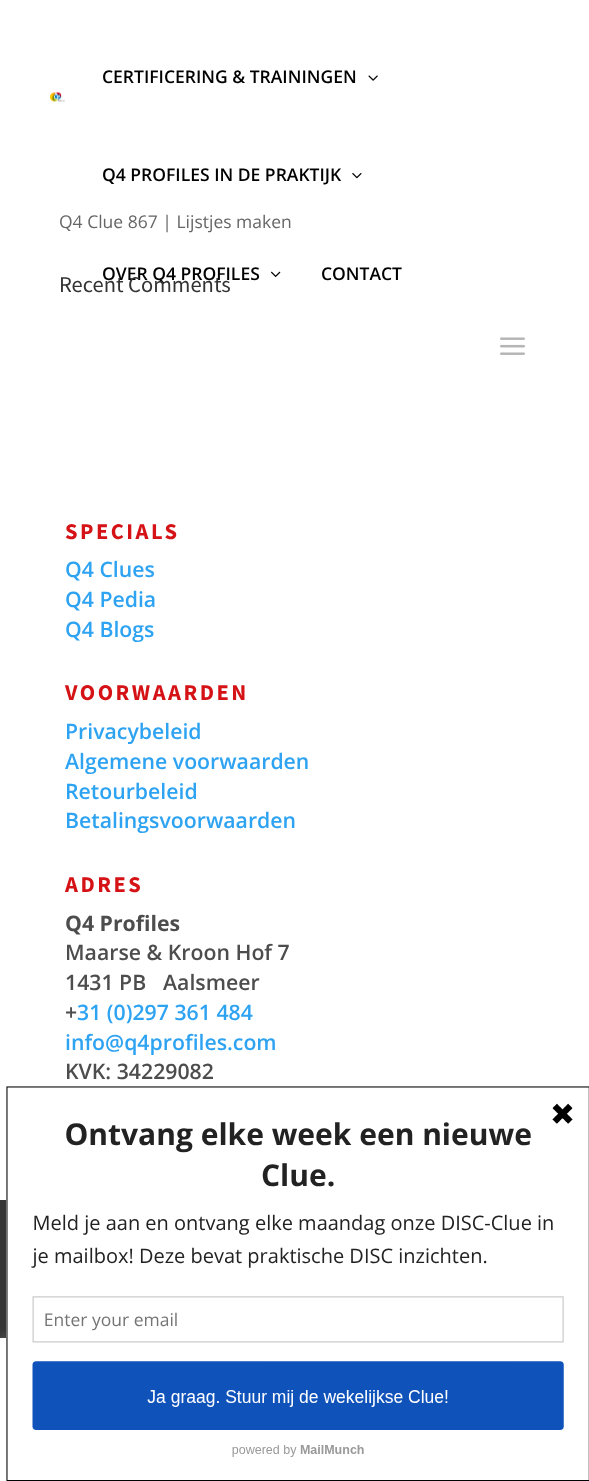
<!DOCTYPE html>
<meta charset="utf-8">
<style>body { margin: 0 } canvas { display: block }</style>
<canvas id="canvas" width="589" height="1481"></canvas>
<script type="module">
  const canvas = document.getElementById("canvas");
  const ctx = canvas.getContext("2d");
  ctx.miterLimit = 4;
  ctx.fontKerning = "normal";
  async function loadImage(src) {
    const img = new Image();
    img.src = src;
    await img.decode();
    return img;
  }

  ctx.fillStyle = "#ffffff";
  ctx.fillRect(0, 0, 589, 1481);
  ctx.drawImage(await loadImage("img1.png"), 50, 92, 15, 10);
  ctx.font = "600 17.5px Open Sans";
  ctx.fillStyle = "#000000";
  ctx.fillText("CERTIFICERING & TRAININGEN", 102, 83);
  ctx.drawImage(await loadImage("img2.png"), 368, 75, 10, 6);
  ctx.fillText("Q4 PROFILES IN DE PRAKTIJK", 102, 181);
  ctx.drawImage(await loadImage("img3.png"), 352, 173, 10, 6);
  ctx.fillText("OVER Q4 PROFILES", 102, 280);
  ctx.drawImage(await loadImage("img4.png"), 271, 271, 10, 6);
  ctx.fillText("CONTACT", 321, 280);
  ctx.drawImage(await loadImage("img5.png"), 500, 337, 25, 18);
  ctx.font = "17.5px Open Sans";
  ctx.fillStyle = "#666666";
  ctx.fillText("Q4 Clue 867 | Lijstjes maken", 59, 228);
  ctx.font = "22.5px Source Sans Pro";
  ctx.fillStyle = "#333333";
  ctx.fillText("Recent Comments", 59, 292);
  ctx.letterSpacing = "2.5px";
  ctx.font = "bold 22.5px Source Sans Pro";
  ctx.fillStyle = "#d51317";
  ctx.fillText("SPECIALS", 65, 539);
  ctx.letterSpacing = "0px";
  ctx.font = "600 21.25px Open Sans";
  ctx.fillStyle = "#2ea3f2";
  ctx.fillText("Q4 Clues", 65, 577);
  ctx.fillText("Q4 Pedia", 65, 607);
  ctx.fillText("Q4 Blogs", 65, 637);
  ctx.letterSpacing = "2.5px";
  ctx.font = "bold 22.5px Source Sans Pro";
  ctx.fillStyle = "#d51317";
  ctx.fillText("VOORWAARDEN", 65, 700);
  ctx.letterSpacing = "0px";
  ctx.font = "600 21.25px Open Sans";
  ctx.fillStyle = "#2ea3f2";
  ctx.fillText("Privacybeleid", 65, 739);
  ctx.fillText("Algemene voorwaarden", 65, 769);
  ctx.fillText("Retourbeleid", 65, 799);
  ctx.fillText("Betalingsvoorwaarden", 65, 828);
  ctx.letterSpacing = "2.5px";
  ctx.font = "bold 22.5px Source Sans Pro";
  ctx.fillStyle = "#d51317";
  ctx.fillText("ADRES", 65, 892);
  ctx.letterSpacing = "0px";
  ctx.font = "bold 21.25px Open Sans";
  ctx.fillStyle = "#4d4d4d";
  ctx.fillText("Q4 Profiles", 65, 931);
  ctx.font = "600 21.25px Open Sans";
  ctx.fillText("Maarse & Kroon Hof 7", 65, 960);
  ctx.fillText("1431 PB", 65, 990);
  ctx.fillText("Aalsmeer", 163, 990);
  ctx.fillText("+", 65, 1020);
  ctx.fillStyle = "#2ea3f2";
  ctx.fillText("31 (0)297 361 484", 77, 1020);
  ctx.fillText("info@q4profiles.com", 65, 1050);
  ctx.fillStyle = "#4d4d4d";
  ctx.fillText("KVK: 34229082", 65, 1079);
  ctx.fillStyle = "#353535";
  ctx.fillRect(0, 1200, 6, 138);
  ctx.fillStyle = "rgba(172, 171, 171, 0.3)";
  ctx.filter = "blur(6px)";
  ctx.beginPath();
  ctx.rect(0, 1336, 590, 144);
  ctx.fill();
  ctx.filter = "none";
  ctx.drawImage(await loadImage("img6.png"), 6, 1086, 583, 395);
  ctx.fillStyle = "#ffffff";
  ctx.fillRect(0, 1338, 6, 143);
</script>
